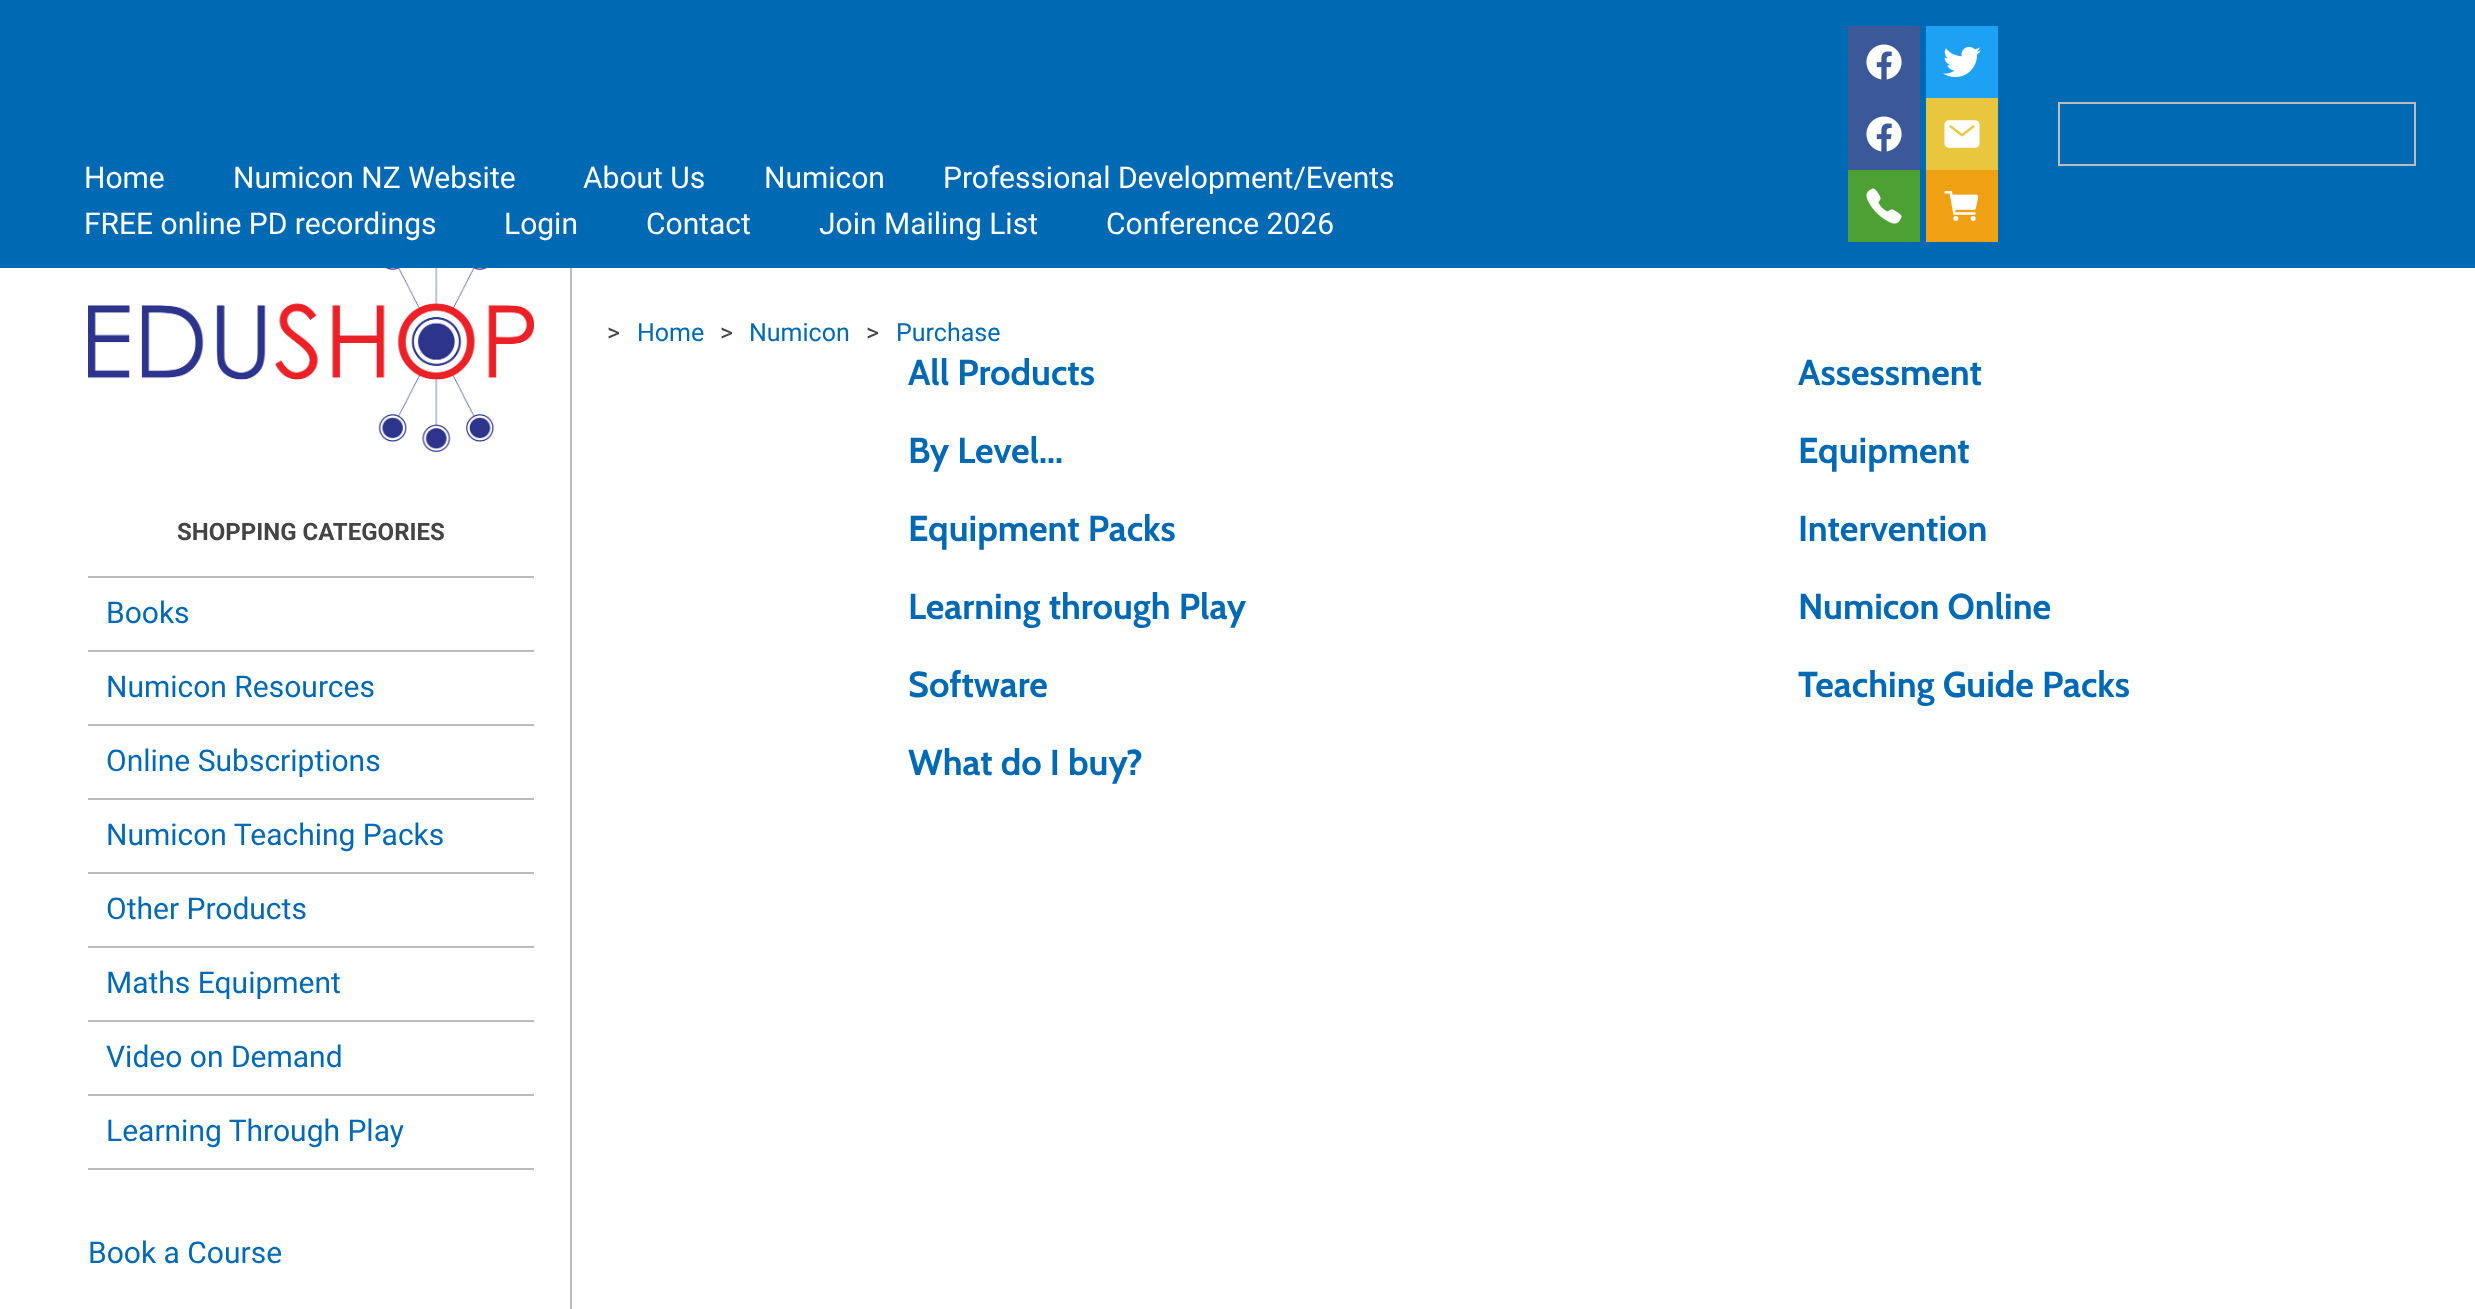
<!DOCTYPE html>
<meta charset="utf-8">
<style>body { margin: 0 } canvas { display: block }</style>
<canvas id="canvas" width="2475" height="1309"></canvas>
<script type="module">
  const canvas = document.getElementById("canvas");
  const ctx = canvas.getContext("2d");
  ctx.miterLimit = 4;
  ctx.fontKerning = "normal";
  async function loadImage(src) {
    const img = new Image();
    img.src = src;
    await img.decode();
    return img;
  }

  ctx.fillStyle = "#ffffff";
  ctx.fillRect(0, 0, 2475, 1309);
  ctx.fillStyle = "#0069b4";
  ctx.fillRect(0, 0, 2475, 268);
  ctx.font = "30px Roboto";
  ctx.fillStyle = "#ffffff";
  ctx.fillText("Home", 84, 188);
  ctx.fillText("Numicon NZ Website", 233, 188);
  ctx.fillText("About Us", 583, 188);
  ctx.fillText("Numicon", 764, 188);
  ctx.fillText("Professional Development/Events", 943, 188);
  ctx.fillText("FREE online PD recordings", 84, 234);
  ctx.fillText("Login", 504, 234);
  ctx.fillText("Contact", 646, 234);
  ctx.fillText("Join Mailing List", 819, 234);
  ctx.fillText("Conference 2026", 1106, 234);
  ctx.fillStyle = "#3b5998";
  ctx.fillRect(1848, 26, 72, 144);
  ctx.drawImage(await loadImage("img1.png"), 1866, 44, 36, 36);
  ctx.fillStyle = "#1da1f2";
  ctx.fillRect(1926, 26, 72, 72);
  ctx.drawImage(await loadImage("img2.png"), 1943, 46, 38, 32);
  ctx.drawImage(await loadImage("img1.png"), 1866, 116, 36, 36);
  ctx.fillStyle = "#e8c63e";
  ctx.fillRect(1926, 98, 72, 72);
  ctx.drawImage(await loadImage("img3.png"), 1944, 120, 36, 28);
  ctx.fillStyle = "#4da033";
  ctx.fillRect(1848, 170, 72, 72);
  ctx.drawImage(await loadImage("img4.png"), 1866, 188, 36, 36);
  ctx.fillStyle = "#efa113";
  ctx.fillRect(1926, 170, 72, 72);
  ctx.drawImage(await loadImage("img5.png"), 1944, 190, 35, 31);
  ctx.strokeStyle = "#bcbcbc";
  ctx.lineWidth = 2;
  ctx.strokeRect(2059, 103, 356, 62);
  ctx.fillStyle = "#bcbcbc";
  ctx.fillRect(570, 268, 2, 1041);
  ctx.drawImage(await loadImage("img6.png"), 88, 268, 446, 184);
  ctx.fillRect(88, 1168, 446, 2);
  ctx.font = "bold 24px Roboto";
  ctx.fillStyle = "#444444";
  ctx.fillText("SHOPPING CATEGORIES", 177, 540);
  ctx.fillStyle = "#bcbcbc";
  ctx.fillRect(88, 576, 446, 2);
  ctx.font = "30px Roboto";
  ctx.fillStyle = "#0069b4";
  ctx.fillText("Books", 106, 623);
  ctx.fillStyle = "#bcbcbc";
  ctx.fillRect(88, 650, 446, 2);
  ctx.fillStyle = "#0069b4";
  ctx.fillText("Numicon Resources", 106, 697);
  ctx.fillStyle = "#bcbcbc";
  ctx.fillRect(88, 724, 446, 2);
  ctx.fillStyle = "#0069b4";
  ctx.fillText("Online Subscriptions", 106, 771);
  ctx.fillStyle = "#bcbcbc";
  ctx.fillRect(88, 798, 446, 2);
  ctx.fillStyle = "#0069b4";
  ctx.fillText("Numicon Teaching Packs", 106, 845);
  ctx.fillStyle = "#bcbcbc";
  ctx.fillRect(88, 872, 446, 2);
  ctx.fillStyle = "#0069b4";
  ctx.fillText("Other Products", 106, 919);
  ctx.fillStyle = "#bcbcbc";
  ctx.fillRect(88, 946, 446, 2);
  ctx.fillStyle = "#0069b4";
  ctx.fillText("Maths Equipment", 106, 993);
  ctx.fillStyle = "#bcbcbc";
  ctx.fillRect(88, 1020, 446, 2);
  ctx.fillStyle = "#0069b4";
  ctx.fillText("Video on Demand", 106, 1067);
  ctx.fillStyle = "#bcbcbc";
  ctx.fillRect(88, 1094, 446, 2);
  ctx.fillStyle = "#0069b4";
  ctx.fillText("Learning Through Play", 106, 1141);
  ctx.fillText("Book a Course", 88, 1263);
  ctx.font = "25px Roboto";
  ctx.fillStyle = "#444444";
  ctx.fillText(">", 607, 341);
  ctx.fillStyle = "#0069b4";
  ctx.fillText("Home", 637, 341);
  ctx.fillStyle = "#444444";
  ctx.fillText(">", 720, 341);
  ctx.fillStyle = "#0069b4";
  ctx.fillText("Numicon", 749, 341);
  ctx.fillStyle = "#444444";
  ctx.fillText(">", 866, 341);
  ctx.fillStyle = "#0069b4";
  ctx.fillText("Purchase", 896, 341);
  ctx.font = "bold 36px Cabin";
  ctx.fillText("All Products", 908, 385);
  ctx.fillText("Assessment", 1798, 385);
  ctx.fillText("By Level...", 908, 463);
  ctx.fillText("Equipment", 1798, 463);
  ctx.fillText("Equipment Packs", 908, 541);
  ctx.fillText("Intervention", 1798, 541);
  ctx.fillText("Learning through Play", 908, 619);
  ctx.fillText("Numicon Online", 1798, 619);
  ctx.fillText("Software", 908, 697);
  ctx.fillText("Teaching Guide Packs", 1798, 697);
  ctx.fillText("What do I buy?", 908, 775);
</script>
